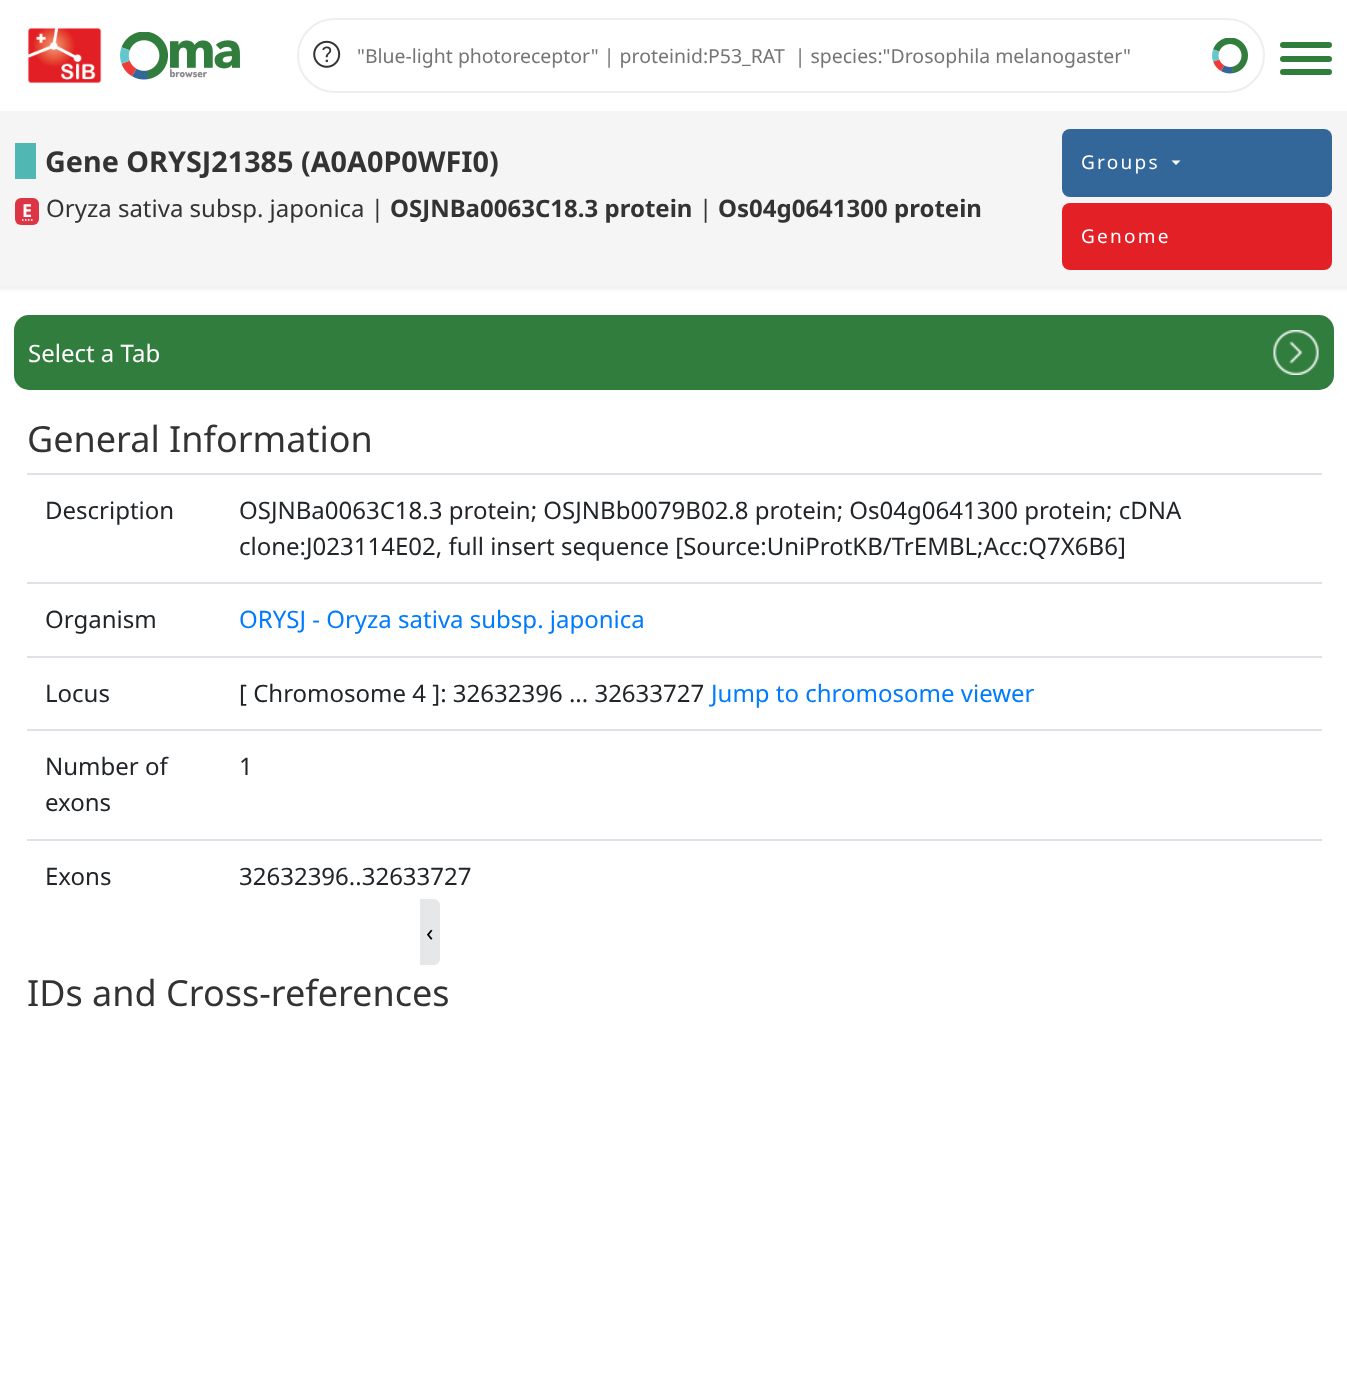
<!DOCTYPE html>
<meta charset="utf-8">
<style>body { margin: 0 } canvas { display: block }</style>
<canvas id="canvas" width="1347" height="1383"></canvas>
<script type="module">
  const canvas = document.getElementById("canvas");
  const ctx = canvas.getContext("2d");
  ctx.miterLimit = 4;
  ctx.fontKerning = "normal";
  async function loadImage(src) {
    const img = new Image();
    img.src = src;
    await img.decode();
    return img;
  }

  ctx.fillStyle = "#ffffff";
  ctx.fillRect(0, 0, 1347, 1383);
  ctx.fillStyle = "rgba(0, 0, 0, 0.05)";
  ctx.filter = "blur(1.5px)";
  ctx.beginPath();
  ctx.rect(-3, 107, 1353, 183);
  ctx.fill();
  ctx.filter = "none";
  ctx.fillStyle = "#ffffff";
  ctx.fillRect(0, 106, 1347, 5);
  ctx.drawImage(await loadImage("img1.png"), 27, 27, 75, 57);
  ctx.drawImage(await loadImage("img2.png"), 120, 32, 120, 48);
  ctx.beginPath();
  ctx.roundRect(298, 19, 966, 73, 36.5);
  ctx.strokeStyle = "#eeeeee";
  ctx.lineWidth = 2;
  ctx.stroke();
  ctx.drawImage(await loadImage("img3.png"), 313, 40, 28, 28);
  ctx.font = "19.45px Noto Sans";
  ctx.fillStyle = "#757575";
  ctx.fillText("\"Blue-light photoreceptor\" | proteinid:P53_RAT  | species:\"Drosophila melanogaster\"", 357, 63);
  ctx.drawImage(await loadImage("img4.png"), 1212, 38, 36, 36);
  ctx.fillStyle = "#317d3d";
  ctx.beginPath();
  ctx.roundRect(1280, 42, 52, 6, 3);
  ctx.fill();
  ctx.beginPath();
  ctx.roundRect(1280, 56, 52, 6, 3);
  ctx.fill();
  ctx.beginPath();
  ctx.roundRect(1280, 69, 52, 6, 3);
  ctx.fill();
  ctx.fillStyle = "#f5f5f5";
  ctx.fillRect(0, 111, 1347, 174);
  ctx.fillStyle = "#50b7b3";
  ctx.fillRect(15, 143, 21, 36);
  ctx.font = "bold 28.75px Noto Sans";
  ctx.fillStyle = "#333333";
  ctx.fillText("Gene ORYSJ21385 (A0A0P0WFI0)", 45, 172);
  ctx.fillStyle = "#dc3545";
  ctx.beginPath();
  ctx.roundRect(15, 198, 24, 27, 6);
  ctx.fill();
  ctx.font = "bold 18px Noto Sans";
  ctx.fillStyle = "#ffffff";
  ctx.fillText("E", 22, 217);
  ctx.beginPath();
  ctx.moveTo(22, 220);
  ctx.lineTo(23.5, 220);
  ctx.moveTo(25, 220);
  ctx.lineTo(26.5, 220);
  ctx.moveTo(28, 220);
  ctx.lineTo(29.5, 220);
  ctx.moveTo(31, 220);
  ctx.lineTo(32.5, 220);
  ctx.strokeStyle = "#ffffff";
  ctx.lineWidth = 1.5;
  ctx.stroke();
  ctx.font = "24px Noto Sans";
  ctx.fillStyle = "#333333";
  ctx.fillText("Oryza sativa subsp. japonica |", 46, 217);
  ctx.font = "bold 24px Noto Sans";
  ctx.fillText("OSJNBa0063C18.3 protein", 390, 217);
  ctx.font = "24px Noto Sans";
  ctx.fillText("|", 699, 217);
  ctx.font = "bold 24px Noto Sans";
  ctx.fillText("Os04g0641300 protein", 718, 217);
  ctx.fillStyle = "#336799";
  ctx.beginPath();
  ctx.roundRect(1062, 129, 270, 68, 8);
  ctx.fill();
  ctx.letterSpacing = "2.25px";
  ctx.font = "19px Noto Sans";
  ctx.fillStyle = "#ffffff";
  ctx.fillText("Groups", 1081, 169);
  ctx.beginPath();
  ctx.moveTo(1171.5, 160.5);
  ctx.lineTo(1180.5, 160.5);
  ctx.lineTo(1176, 165);
  ctx.closePath();
  ctx.fill();
  ctx.fillStyle = "#e32026";
  ctx.beginPath();
  ctx.roundRect(1062, 203, 270, 67, 8);
  ctx.fill();
  ctx.fillStyle = "#ffffff";
  ctx.fillText("Genome", 1081, 243);
  ctx.fillStyle = "#317d3d";
  ctx.beginPath();
  ctx.roundRect(14, 315, 1320, 75, 15);
  ctx.fill();
  ctx.letterSpacing = "0px";
  ctx.font = "24px Noto Sans";
  ctx.fillStyle = "#ffffff";
  ctx.fillText("Select a Tab", 28, 362);
  ctx.drawImage(await loadImage("img5.png"), 1273, 330, 46, 45);
  ctx.font = "36px Noto Sans";
  ctx.fillStyle = "#333333";
  ctx.fillText("General Information", 27, 452);
  ctx.font = "24px Noto Sans";
  ctx.fillStyle = "#212529";
  ctx.fillText("Description", 45, 519);
  ctx.fillStyle = "#dee2e6";
  ctx.fillRect(27, 473, 1295, 2);
  ctx.fillStyle = "#212529";
  ctx.fillText("OSJNBa0063C18.3 protein; OSJNBb0079B02.8 protein; Os04g0641300 protein; cDNA", 239, 519);
  ctx.fillText("clone:J023114E02, full insert sequence [Source:UniProtKB/TrEMBL;Acc:Q7X6B6]", 239, 555);
  ctx.fillText("Organism", 45, 628);
  ctx.fillStyle = "#dee2e6";
  ctx.fillRect(27, 582, 1295, 2);
  ctx.fillStyle = "#007bff";
  ctx.fillText("ORYSJ - Oryza sativa subsp. japonica", 239, 628);
  ctx.fillStyle = "#212529";
  ctx.fillText("Locus", 45, 702);
  ctx.fillStyle = "#dee2e6";
  ctx.fillRect(27, 656, 1295, 2);
  ctx.fillStyle = "#212529";
  ctx.fillText("[ Chromosome 4 ]: 32632396 ... 32633727", 239, 702);
  ctx.fillStyle = "#007bff";
  ctx.fillText("Jump to chromosome viewer", 711, 702);
  ctx.fillStyle = "#212529";
  ctx.fillText("Number of", 45, 775);
  ctx.fillText("exons", 45, 811);
  ctx.fillStyle = "#dee2e6";
  ctx.fillRect(27, 729, 1295, 2);
  ctx.fillStyle = "#212529";
  ctx.fillText("1", 239, 775);
  ctx.fillText("Exons", 45, 885);
  ctx.fillStyle = "#dee2e6";
  ctx.fillRect(27, 839, 1295, 2);
  ctx.fillStyle = "#212529";
  ctx.fillText("32632396..32633727", 239, 885);
  ctx.font = "36px Noto Sans";
  ctx.fillStyle = "#333333";
  ctx.fillText("IDs and Cross-references", 27, 1006);
  ctx.fillStyle = "#e6e7e8";
  ctx.beginPath();
  ctx.roundRect(420, 899, 20, 66, [0, 6, 6, 0]);
  ctx.fill();
  ctx.font = "24px Noto Sans";
  ctx.fillStyle = "#000000";
  ctx.fillText("‹", 426, 941);
</script>
